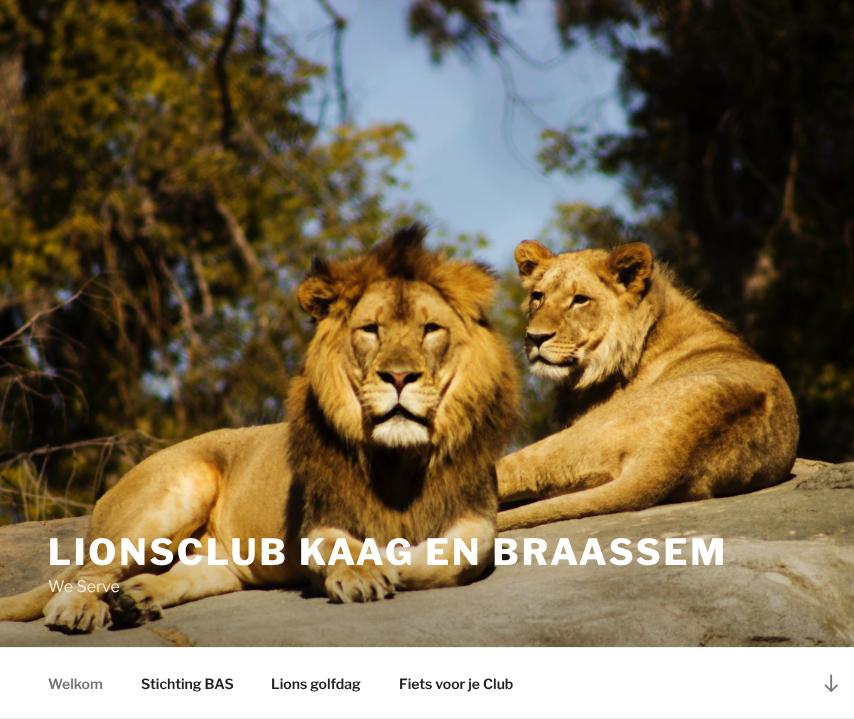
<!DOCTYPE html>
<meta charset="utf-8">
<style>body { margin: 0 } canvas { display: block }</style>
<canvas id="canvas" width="854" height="719"></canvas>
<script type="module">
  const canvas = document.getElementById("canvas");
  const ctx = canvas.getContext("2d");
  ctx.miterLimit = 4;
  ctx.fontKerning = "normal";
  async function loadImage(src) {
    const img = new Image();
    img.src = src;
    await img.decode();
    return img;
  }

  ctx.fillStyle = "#ffffff";
  ctx.fillRect(0, 0, 854, 719);
  ctx.drawImage(await loadImage("img1.png"), 0, 0, 854, 647);
  ctx.letterSpacing = "2.9px";
  ctx.font = "100 36px Libre Franklin";
  ctx.fillText("LIONSCLUB KAAG EN BRAASSEM", 48, 565);
  ctx.letterSpacing = "0px";
  ctx.font = "100 16px 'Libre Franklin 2'";
  ctx.fillStyle = "#eee7db";
  ctx.fillText("We Serve", 48, 592);
  ctx.fillStyle = "#eeeeee";
  ctx.fillRect(0, 647, 854, 1);
  ctx.fillRect(0, 718, 854, 1);
  ctx.font = "100 14px 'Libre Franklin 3'";
  ctx.fillStyle = "#767676";
  ctx.fillText("Welkom", 48, 689);
  ctx.fillStyle = "#222222";
  ctx.fillText("Stichting BAS", 141, 689);
  ctx.fillText("Lions golfdag", 271, 689);
  ctx.fillText("Fiets voor je Club", 399, 689);
  ctx.drawImage(await loadImage("img2.png"), 824, 674, 14, 18);
</script>
